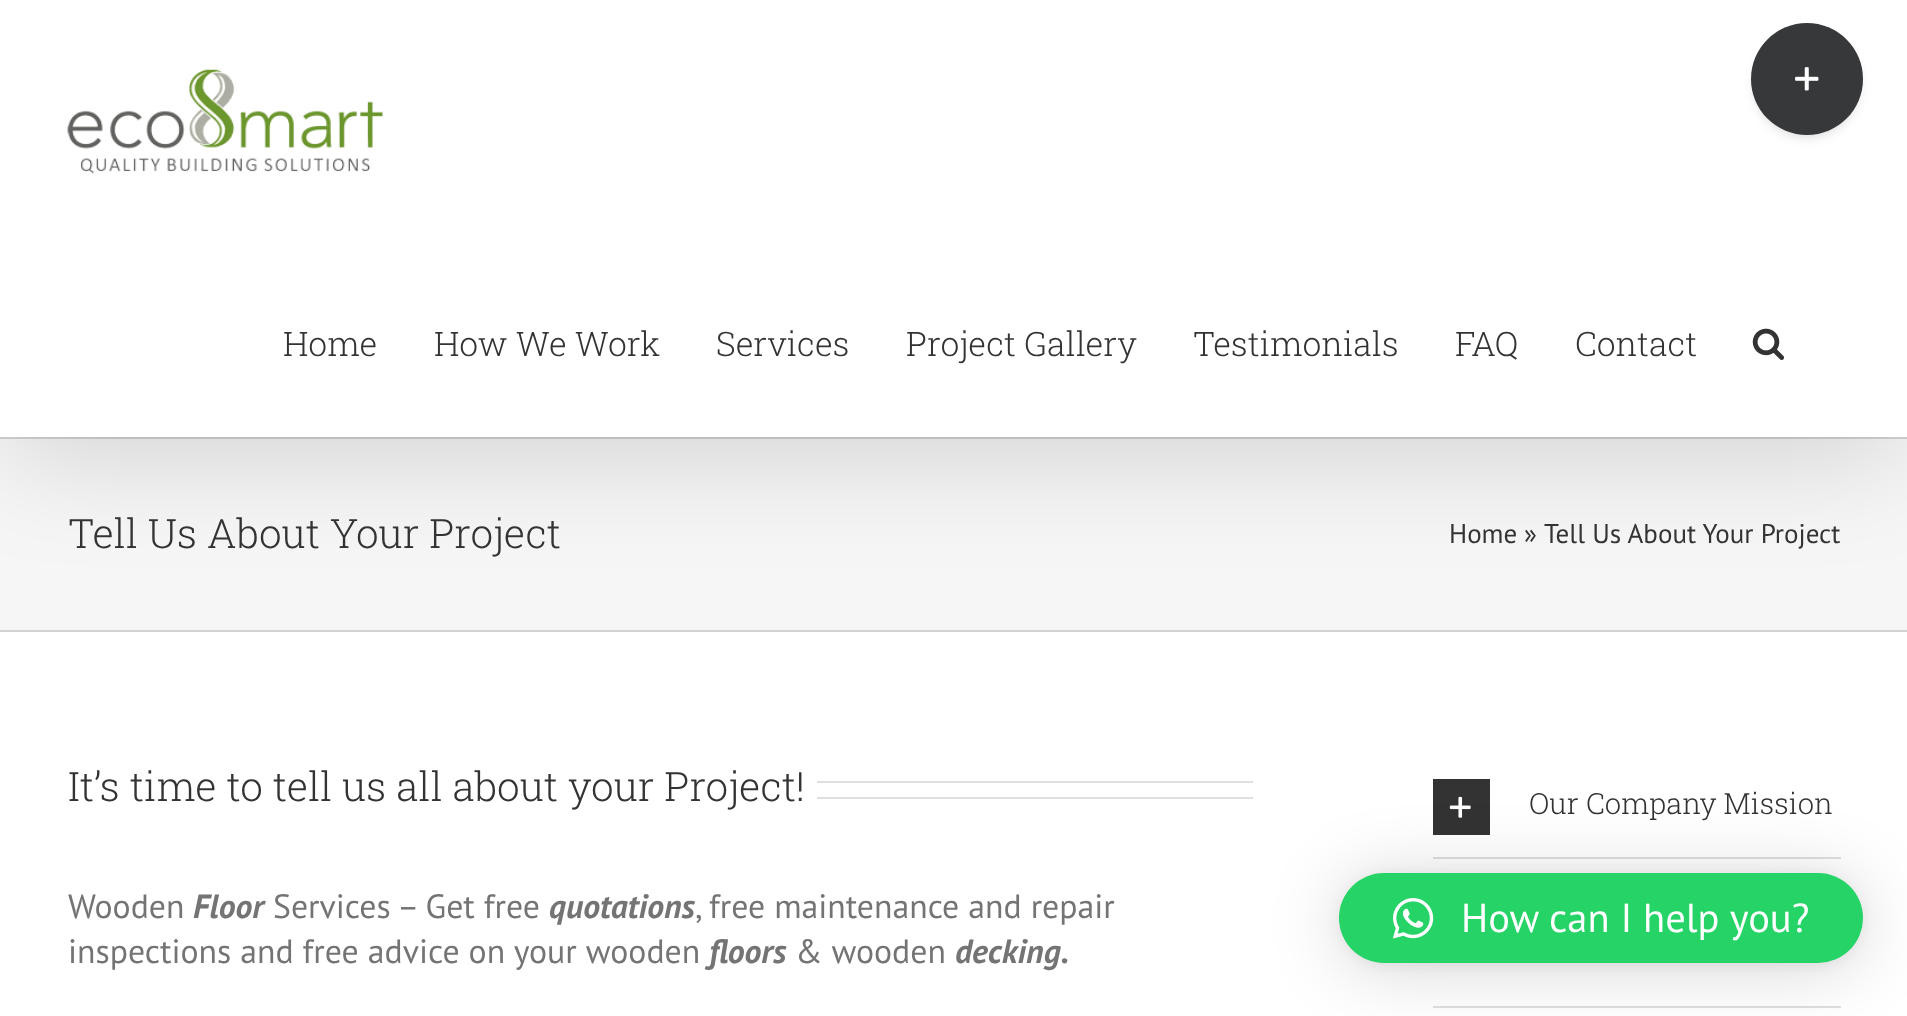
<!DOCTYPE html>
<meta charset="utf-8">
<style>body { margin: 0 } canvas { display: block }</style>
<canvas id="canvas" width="1907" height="1016"></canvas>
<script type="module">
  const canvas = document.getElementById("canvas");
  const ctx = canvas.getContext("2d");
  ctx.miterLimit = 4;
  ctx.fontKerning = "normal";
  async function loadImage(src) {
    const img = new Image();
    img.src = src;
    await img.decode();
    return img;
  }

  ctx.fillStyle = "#ffffff";
  ctx.fillRect(0, 0, 1907, 1016);
  ctx.fillStyle = "#f6f6f6";
  ctx.fillRect(0, 439, 1907, 191);
  ctx.fillStyle = "#d2d3d4";
  ctx.fillRect(0, 437, 1907, 2);
  ctx.fillStyle = "rgba(0, 0, 0, 0.14)";
  ctx.filter = "blur(56px)";
  ctx.beginPath();
  ctx.rect(5, 27, 1899, 428);
  ctx.fill();
  ctx.filter = "none";
  ctx.fillStyle = "#ffffff";
  ctx.fillRect(0, 0, 1907, 437);
  ctx.fillStyle = "rgba(0, 0, 0, 0.14)";
  ctx.filter = "blur(5.5px)";
  ctx.beginPath();
  ctx.roundRect(1755, 34, 104, 103, 51.5);
  ctx.fill();
  ctx.filter = "none";
  ctx.fillStyle = "#363839";
  ctx.beginPath();
  ctx.arc(1807, 79, 56, 0, Math.PI * 2);
  ctx.fill();
  ctx.drawImage(await loadImage("img1.png"), 1795, 67, 24, 24);
  ctx.drawImage(await loadImage("img2.png"), 67, 69, 316, 105);
  ctx.font = "300 33.75px Roboto Slab";
  ctx.fillStyle = "#333333";
  ctx.fillText("Home", 283, 356);
  ctx.fillText("How We Work", 434, 356);
  ctx.fillText("Services", 716, 356);
  ctx.fillText("Project Gallery", 906, 356);
  ctx.fillText("Testimonials", 1193, 356);
  ctx.fillText("FAQ", 1455, 356);
  ctx.fillText("Contact", 1575, 356);
  ctx.drawImage(await loadImage("img3.png"), 1752, 328, 33, 32);
  ctx.fillStyle = "#d2d3d4";
  ctx.fillRect(0, 630, 1907, 2);
  ctx.font = "300 40.5px Roboto Slab";
  ctx.fillStyle = "#333333";
  ctx.fillText("Tell Us About Your Project", 68, 548);
  ctx.font = "27px PT Sans";
  ctx.fillText("Home", 1449, 543);
  ctx.fillText("»", 1524, 543);
  ctx.fillText("Tell Us About Your Project", 1544, 543);
  ctx.font = "300 40.5px Roboto Slab";
  ctx.fillText("It’s time to tell us all about your Project!", 68, 801);
  ctx.fillStyle = "#e0dede";
  ctx.fillRect(817, 781, 436, 2);
  ctx.fillRect(817, 797, 436, 2);
  ctx.font = "33.75px PT Sans";
  ctx.fillStyle = "#747474";
  ctx.fillText("Wooden", 68, 918);
  ctx.font = "italic bold 33.75px PT Sans";
  ctx.fillText("Floor", 193, 918);
  ctx.font = "33.75px PT Sans";
  ctx.fillText("Services – Get free", 273, 918);
  ctx.font = "italic bold 33.75px PT Sans";
  ctx.fillText("quotations", 549, 918);
  ctx.font = "33.75px PT Sans";
  ctx.fillText(", free maintenance and repair", 695, 918);
  ctx.fillText("inspections and free advice on your wooden", 68, 963);
  ctx.font = "italic bold 33.75px PT Sans";
  ctx.fillText("floors", 709, 963);
  ctx.font = "33.75px PT Sans";
  ctx.fillText("& wooden", 795, 963);
  ctx.font = "italic bold 33.75px PT Sans";
  ctx.fillText("decking.", 955, 963);
  ctx.fillStyle = "#e0dede";
  ctx.fillRect(1433, 857, 408, 2);
  ctx.fillStyle = "#333333";
  ctx.fillRect(1433, 779, 57, 56);
  ctx.drawImage(await loadImage("img4.png"), 1449, 796, 22, 22);
  ctx.font = "300 29.25px Roboto Slab";
  ctx.fillText("Our Company Mission", 1529, 814);
  ctx.fillStyle = "#e0dede";
  ctx.fillRect(1433, 1006, 408, 2);
  ctx.fillStyle = "rgba(0, 0, 0, 0.16)";
  ctx.filter = "blur(36px)";
  ctx.beginPath();
  ctx.roundRect(1339, 878, 524, 90, 45);
  ctx.fill();
  ctx.filter = "none";
  ctx.fillStyle = "rgba(0, 0, 0, 0.06)";
  ctx.filter = "blur(7px)";
  ctx.beginPath();
  ctx.roundRect(1339, 875, 524, 90, 45);
  ctx.fill();
  ctx.filter = "none";
  ctx.fillStyle = "#25d366";
  ctx.beginPath();
  ctx.roundRect(1339, 873, 524, 90, 45);
  ctx.fill();
  ctx.drawImage(await loadImage("img5.png"), 1392, 898, 42, 41);
  ctx.font = "40.5px PT Sans";
  ctx.fillStyle = "#ffffff";
  ctx.fillText("How can I help you?", 1461, 932);
</script>
